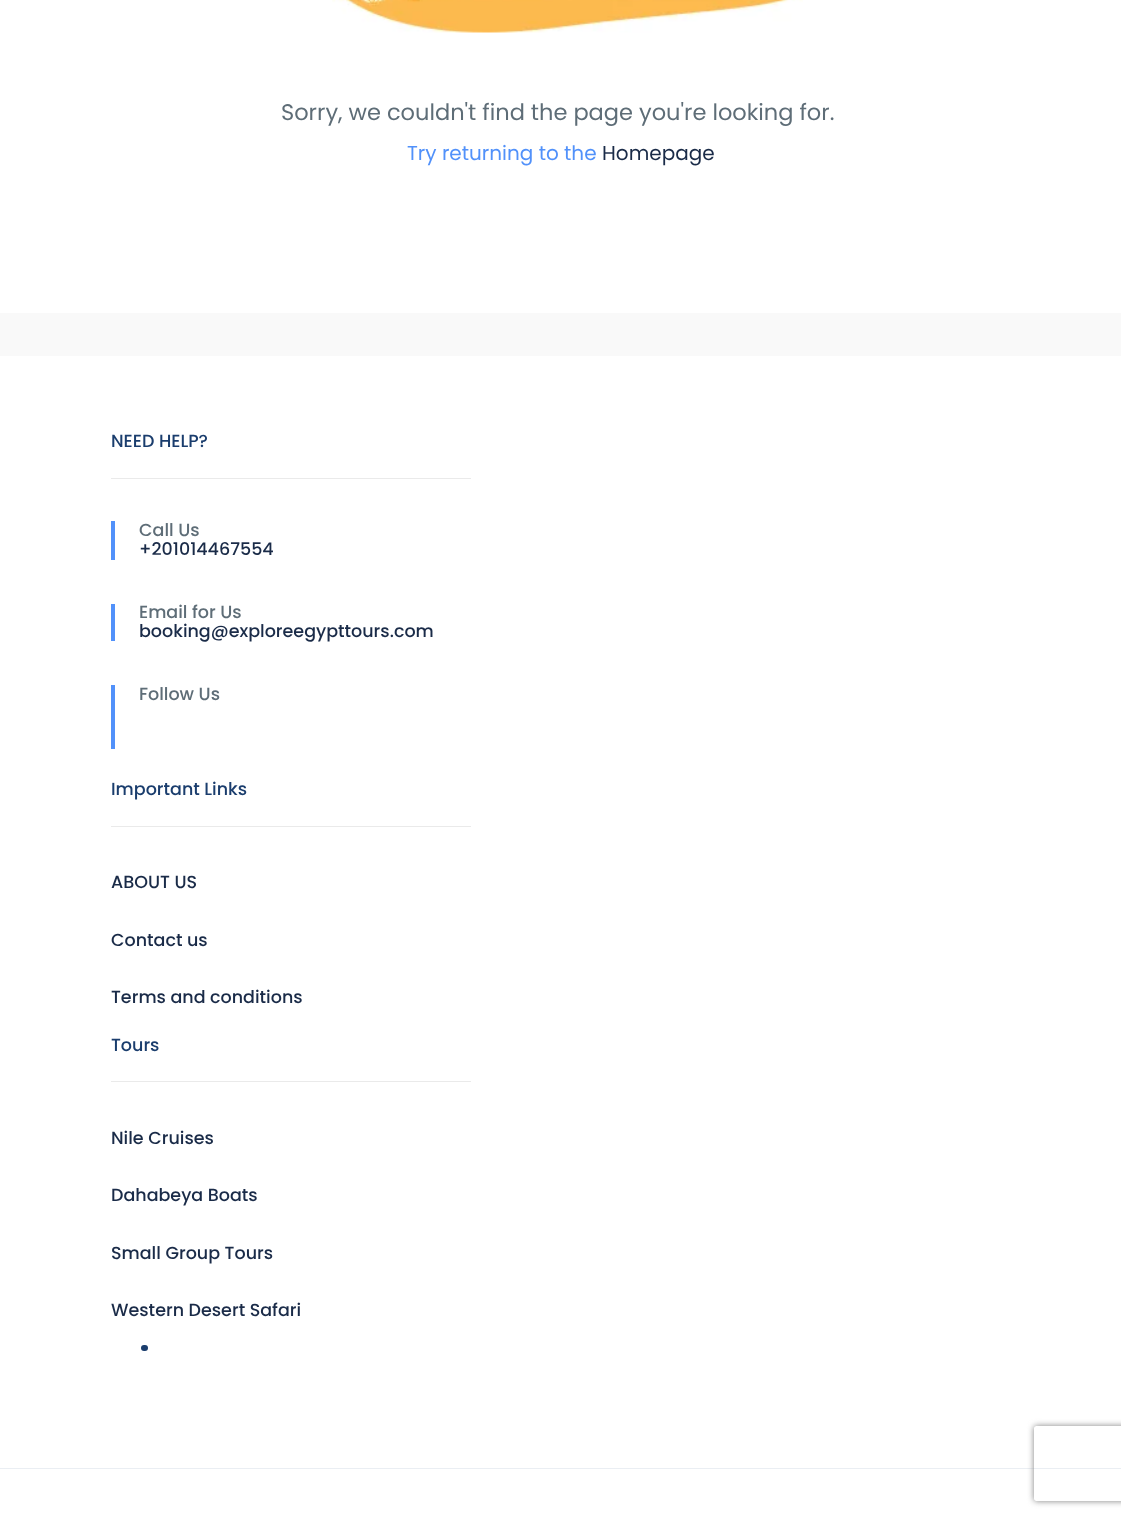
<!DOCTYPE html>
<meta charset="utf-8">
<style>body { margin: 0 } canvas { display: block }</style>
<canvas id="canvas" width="1121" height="1518"></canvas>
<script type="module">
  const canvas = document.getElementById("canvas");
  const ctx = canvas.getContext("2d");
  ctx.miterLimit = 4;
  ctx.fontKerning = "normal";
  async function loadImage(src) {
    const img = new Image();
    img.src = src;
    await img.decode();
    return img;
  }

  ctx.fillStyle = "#ffffff";
  ctx.fillRect(0, 0, 1121, 1518);
  ctx.drawImage(await loadImage("img1.png"), 332, 0, 471, 33);
  ctx.font = "22.5px Poppins";
  ctx.fillStyle = "#5e6d77";
  ctx.fillText("Sorry, we couldn't find the page you're looking for.", 281, 120);
  ctx.font = "20px Poppins";
  ctx.fillStyle = "#5191fa";
  ctx.fillText("Try returning to the", 407, 160);
  ctx.fillStyle = "#1a2b48";
  ctx.fillText("Homepage", 602, 160);
  ctx.fillStyle = "#eaeef3";
  ctx.fillRect(0, 1468, 1121, 1);
  ctx.fillStyle = "#f9f9f9";
  ctx.fillRect(0, 313, 1121, 43);
  ctx.font = "500 17.5px Poppins";
  ctx.fillStyle = "#1a3d6d";
  ctx.fillText("NEED HELP?", 111, 447);
  ctx.fillStyle = "#eaeaea";
  ctx.fillRect(111, 478, 360, 1);
  ctx.fillStyle = "#5191fa";
  ctx.fillRect(111, 521, 4, 39);
  ctx.fillStyle = "#5e6d77";
  ctx.fillText("Call Us", 139, 536);
  ctx.fillStyle = "#1a2b48";
  ctx.fillText("+201014467554", 139, 555);
  ctx.fillStyle = "#5191fa";
  ctx.fillRect(111, 604, 4, 37);
  ctx.fillStyle = "#5e6d77";
  ctx.fillText("Email for Us", 139, 618);
  ctx.fillStyle = "#1a2b48";
  ctx.fillText("booking@exploreegypttours.com", 139, 637);
  ctx.fillStyle = "#5191fa";
  ctx.fillRect(111, 685, 4, 64);
  ctx.fillStyle = "#5e6d77";
  ctx.fillText("Follow Us", 139, 700);
  ctx.fillStyle = "#1a3d6d";
  ctx.fillText("Important Links", 111, 795);
  ctx.fillStyle = "#eaeaea";
  ctx.fillRect(111, 826, 360, 1);
  ctx.fillStyle = "#1a2b48";
  ctx.fillText("ABOUT US", 111, 888);
  ctx.fillText("Contact us", 111, 946);
  ctx.fillText("Terms and conditions", 111, 1003);
  ctx.fillStyle = "#1a3d6d";
  ctx.fillText("Tours", 111, 1051);
  ctx.fillStyle = "#eaeaea";
  ctx.fillRect(111, 1081, 360, 1);
  ctx.fillStyle = "#1a2b48";
  ctx.fillText("Nile Cruises", 111, 1144);
  ctx.fillText("Dahabeya Boats", 111, 1201);
  ctx.fillText("Small Group Tours", 111, 1259);
  ctx.fillText("Western Desert Safari", 111, 1316);
  ctx.fillStyle = "#1a3d6d";
  ctx.beginPath();
  ctx.roundRect(141, 1345, 7, 6, 3);
  ctx.fill();
  ctx.save();
  ctx.beginPath();
  ctx.moveTo(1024, 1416);
  ctx.lineTo(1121, 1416);
  ctx.lineTo(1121, 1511);
  ctx.lineTo(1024, 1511);
  ctx.closePath();
  ctx.moveTo(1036.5, 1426);
  ctx.lineTo(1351.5, 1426);
  ctx.bezierCurveTo(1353, 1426, 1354, 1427, 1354, 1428.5);
  ctx.lineTo(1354, 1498.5);
  ctx.bezierCurveTo(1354, 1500, 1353, 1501, 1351.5, 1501);
  ctx.lineTo(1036.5, 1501);
  ctx.bezierCurveTo(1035, 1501, 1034, 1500, 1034, 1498.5);
  ctx.lineTo(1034, 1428.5);
  ctx.bezierCurveTo(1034, 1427, 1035, 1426, 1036.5, 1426);
  ctx.closePath();
  ctx.clip("evenodd");
  ctx.fillStyle = "#808080";
  ctx.filter = "blur(3px)";
  ctx.beginPath();
  ctx.roundRect(1034, 1426, 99, 75, 2.5);
  ctx.fill();
  ctx.filter = "none";
  ctx.restore();
</script>
